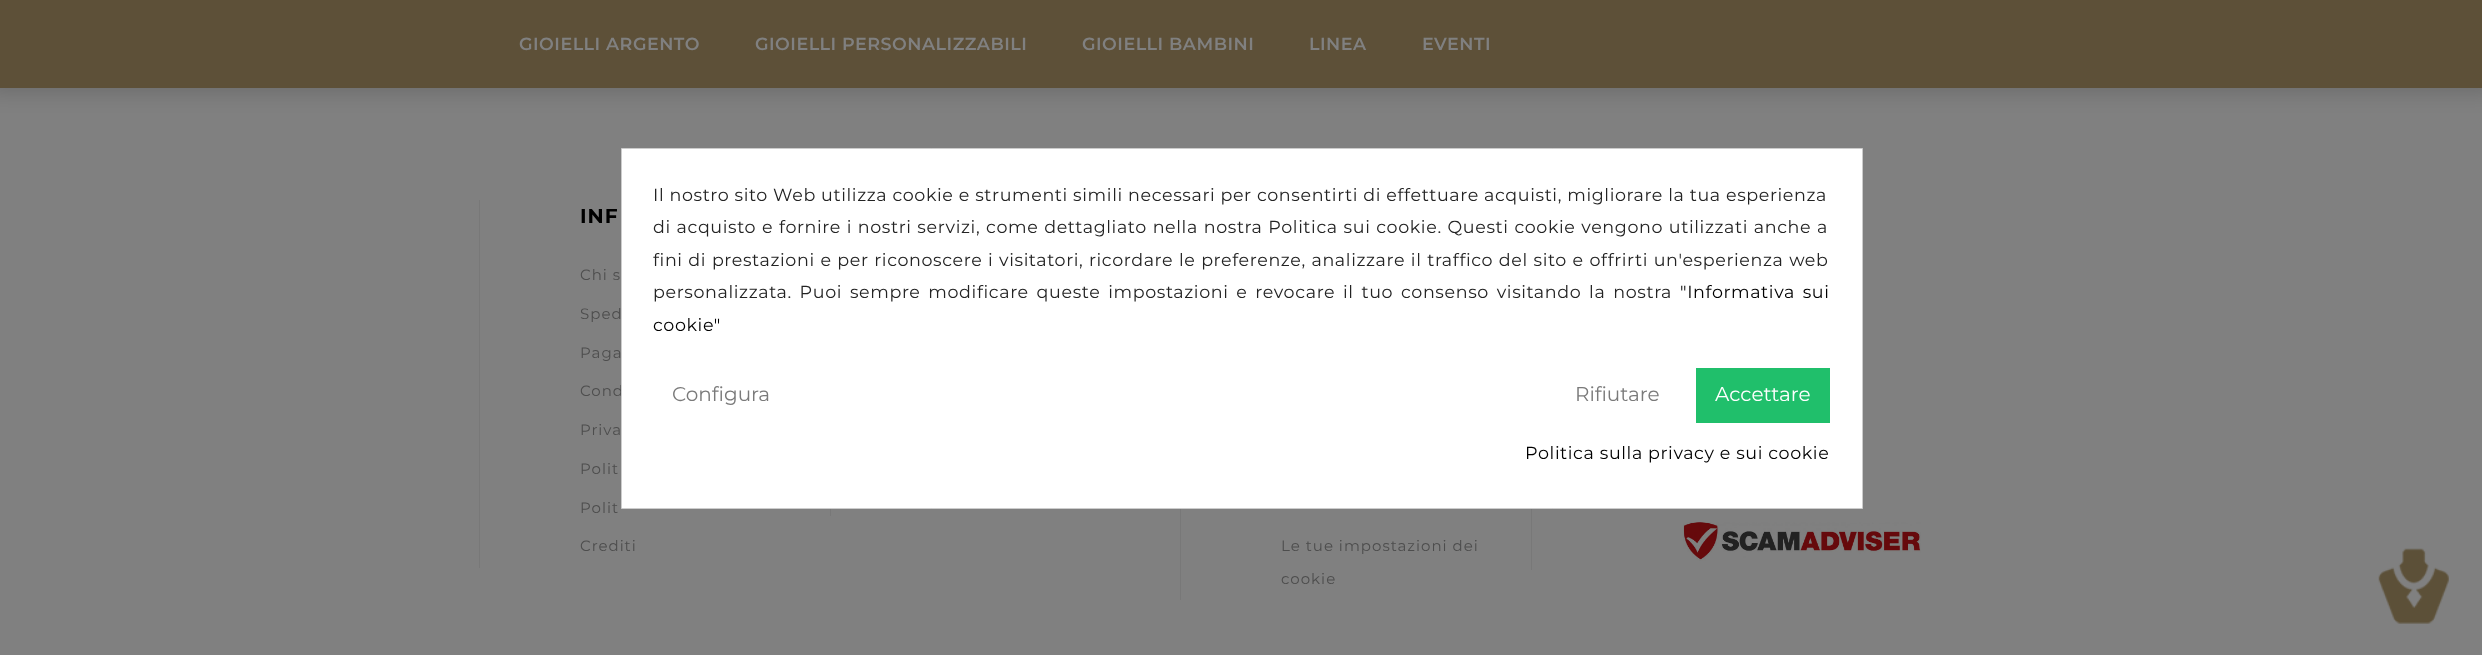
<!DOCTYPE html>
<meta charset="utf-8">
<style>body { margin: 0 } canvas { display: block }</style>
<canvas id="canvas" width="2482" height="655"></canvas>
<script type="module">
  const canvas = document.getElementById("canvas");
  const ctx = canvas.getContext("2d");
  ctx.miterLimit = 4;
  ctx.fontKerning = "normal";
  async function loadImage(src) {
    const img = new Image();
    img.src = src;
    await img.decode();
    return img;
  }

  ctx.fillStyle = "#808080";
  ctx.fillRect(0, 0, 2482, 655);
  ctx.fillStyle = "rgba(0, 0, 0, 0.15)";
  ctx.filter = "blur(10px)";
  ctx.beginPath();
  ctx.rect(-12, 5, 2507, 88);
  ctx.fill();
  ctx.filter = "none";
  ctx.fillStyle = "#5d5038";
  ctx.fillRect(0, 0, 2482, 88);
  ctx.letterSpacing = "0.5px";
  ctx.font = "600 17.5px Montserrat";
  ctx.fillStyle = "#808080";
  ctx.fillText("GIOIELLI ARGENTO", 519, 50);
  ctx.fillText("GIOIELLI PERSONALIZZABILI", 755, 50);
  ctx.fillText("GIOIELLI BAMBINI", 1082, 50);
  ctx.fillText("LINEA", 1309, 50);
  ctx.fillText("EVENTI", 1422, 50);
  ctx.fillStyle = "#787878";
  ctx.fillRect(479, 200, 1, 368);
  ctx.letterSpacing = "1px";
  ctx.font = "bold 20px Montserrat";
  ctx.fillStyle = "#000000";
  ctx.fillText("INF", 580, 223);
  ctx.font = "15px Montserrat";
  ctx.fillStyle = "#4d4d4d";
  ctx.fillText("Chi s", 580, 280);
  ctx.fillText("Sped", 580, 319);
  ctx.fillText("Paga", 580, 358);
  ctx.fillText("Cond", 580, 396);
  ctx.fillText("Priva", 580, 435);
  ctx.fillText("Polit", 580, 474);
  ctx.fillText("Polit", 580, 513);
  ctx.fillText("Crediti", 580, 551);
  ctx.fillStyle = "#787878";
  ctx.fillRect(830, 509, 1, 7);
  ctx.fillRect(1180, 509, 1, 91);
  ctx.fillStyle = "#4d4d4d";
  ctx.fillText("Le tue impostazioni dei", 1281, 551);
  ctx.fillText("cookie", 1281, 584);
  ctx.fillStyle = "#787878";
  ctx.fillRect(1531, 509, 1, 61);
  ctx.drawImage(await loadImage("img1.png"), 1683, 522, 238, 39);
  ctx.drawImage(await loadImage("img2.png"), 2378, 548, 71, 76);
  ctx.fillStyle = "#ffffff";
  ctx.beginPath();
  ctx.rect(621.5, 148.5, 1241, 360);
  ctx.fill();
  ctx.strokeStyle = "#cccccc";
  ctx.stroke();
  ctx.letterSpacing = "0.62px";
  ctx.font = "17.5px Montserrat";
  ctx.fillStyle = "#232323";
  ctx.fillText("Il nostro sito Web utilizza cookie e strumenti simili necessari per consentirti di effettuare acquisti, migliorare la tua esperienza", 653, 201);
  ctx.wordSpacing = "0.6px";
  ctx.fillText("di acquisto e fornire i nostri servizi, come dettagliato nella nostra Politica sui cookie. Questi cookie vengono utilizzati anche a", 653, 233);
  ctx.wordSpacing = "0.5px";
  ctx.fillText("fini di prestazioni e per riconoscere i visitatori, ricordare le preferenze, analizzare il traffico del sito e offrirti un'esperienza web", 653, 266);
  ctx.wordSpacing = "2.6px";
  ctx.fillText("personalizzata. Puoi sempre modificare queste impostazioni e revocare il tuo consenso visitando la nostra", 653, 298);
  ctx.fillStyle = "#000000";
  ctx.fillText("\"Informativa sui", 1680, 298);
  ctx.wordSpacing = "0px";
  ctx.fillText("cookie\"", 653, 331);
  ctx.letterSpacing = "0px";
  ctx.font = "20px Montserrat";
  ctx.fillStyle = "#7a7a7a";
  ctx.fillText("Configura", 672, 401);
  ctx.fillText("Rifiutare", 1575, 401);
  ctx.fillStyle = "#20bf6b";
  ctx.fillRect(1696, 368, 134, 55);
  ctx.fillStyle = "#ffffff";
  ctx.fillText("Accettare", 1715, 401);
  ctx.letterSpacing = "0.62px";
  ctx.font = "17.5px Montserrat";
  ctx.fillStyle = "#000000";
  ctx.fillText("Politica sulla privacy e sui cookie", 1525, 459);
</script>
